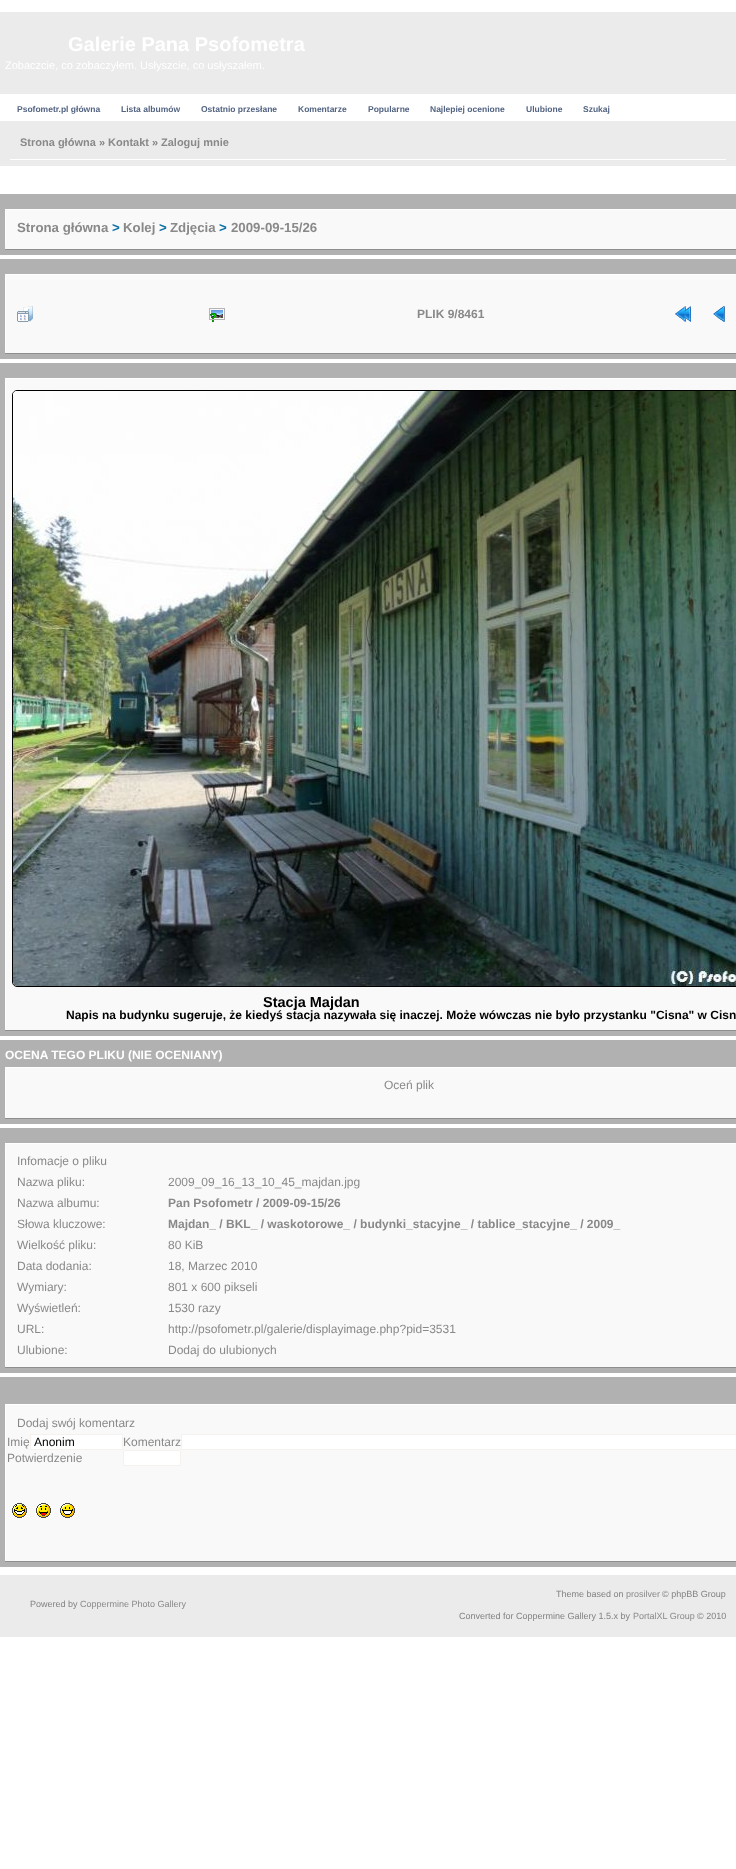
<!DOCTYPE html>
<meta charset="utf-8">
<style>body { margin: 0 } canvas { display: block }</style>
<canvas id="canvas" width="736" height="1869"></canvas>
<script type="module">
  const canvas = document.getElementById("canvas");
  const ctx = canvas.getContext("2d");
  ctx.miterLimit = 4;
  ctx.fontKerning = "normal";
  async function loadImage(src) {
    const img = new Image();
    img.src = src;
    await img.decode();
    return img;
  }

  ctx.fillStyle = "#ffffff";
  ctx.fillRect(0, 0, 736, 1869);
  ctx.fillStyle = "#ebebeb";
  ctx.fillRect(0, 12, 736, 82);
  ctx.font = "bold 20px Liberation Sans";
  ctx.fillStyle = "#ffffff";
  ctx.fillText("Galerie Pana Psofometra", 68, 51);
  ctx.font = "11px Liberation Sans";
  ctx.fillText("Zobaczcie, co zobaczyłem. Usłyszcie, co usłyszałem.", 5, 69);
  ctx.font = "bold 8.5px Liberation Sans";
  ctx.fillStyle = "#536482";
  ctx.fillText("Psofometr.pl główna", 17, 112);
  ctx.fillText("Lista albumów", 121, 112);
  ctx.fillText("Ostatnio przesłane", 201, 112);
  ctx.fillText("Komentarze", 298, 112);
  ctx.fillText("Popularne", 368, 112);
  ctx.fillText("Najlepiej ocenione", 430, 112);
  ctx.fillText("Ulubione", 526, 112);
  ctx.fillText("Szukaj", 583, 112);
  ctx.fillStyle = "#ebebeb";
  ctx.fillRect(0, 121, 736, 45);
  ctx.fillStyle = "#ffffff";
  ctx.fillRect(10, 159, 716, 1);
  ctx.font = "bold 11px Liberation Sans";
  ctx.fillStyle = "#898989";
  ctx.fillText("Strona główna", 20, 146);
  ctx.fillStyle = "#828282";
  ctx.fillText("»", 99, 146);
  ctx.fillStyle = "#898989";
  ctx.fillText("Kontakt", 108, 146);
  ctx.fillStyle = "#828282";
  ctx.fillText("»", 152, 146);
  ctx.fillStyle = "#898989";
  ctx.fillText("Zaloguj mnie", 161, 146);
  ctx.fillStyle = "#b1b1b1";
  ctx.fillRect(0, 194, 736, 61);
  ctx.fillStyle = "#f9f9f9";
  ctx.fillRect(5, 210, 731, 39);
  ctx.fillStyle = "#ffffff";
  ctx.fillRect(5, 209, 731, 1);
  ctx.fillStyle = "#8f8f8f";
  ctx.fillRect(5, 249, 731, 1);
  ctx.fillStyle = "#ffffff";
  ctx.fillRect(5, 212, 1, 31);
  ctx.font = "bold 13.25px Liberation Sans";
  ctx.fillStyle = "#898989";
  ctx.fillText("Strona główna", 17, 232);
  ctx.fillStyle = "#0e72a4";
  ctx.fillText(">", 112, 232);
  ctx.fillStyle = "#898989";
  ctx.fillText("Kolej", 123, 232);
  ctx.fillStyle = "#0e72a4";
  ctx.fillText(">", 159, 232);
  ctx.fillStyle = "#898989";
  ctx.fillText("Zdjęcia", 170, 232);
  ctx.fillStyle = "#0e72a4";
  ctx.fillText(">", 219, 232);
  ctx.fillStyle = "#898989";
  ctx.fillText("2009-09-15/26", 231, 232);
  ctx.fillStyle = "#b1b1b1";
  ctx.fillRect(0, 259, 736, 100);
  ctx.fillStyle = "#f9f9f9";
  ctx.fillRect(5, 275, 731, 78);
  ctx.fillStyle = "#ffffff";
  ctx.fillRect(5, 274, 731, 1);
  ctx.fillStyle = "#8f8f8f";
  ctx.fillRect(5, 353, 731, 1);
  ctx.fillStyle = "#ffffff";
  ctx.fillRect(5, 277, 1, 74);
  ctx.drawImage(await loadImage("img1.png"), 17, 306, 16, 16);
  ctx.drawImage(await loadImage("img2.png"), 209, 308, 16, 14);
  ctx.font = "bold 12px Liberation Sans";
  ctx.fillStyle = "#898989";
  ctx.fillText("PLIK 9/8461", 417, 318);
  ctx.drawImage(await loadImage("img3.png"), 675, 306, 16, 16);
  ctx.drawImage(await loadImage("img4.png"), 713, 306, 12, 16);
  ctx.fillStyle = "#b1b1b1";
  ctx.fillRect(0, 363, 736, 673);
  ctx.fillStyle = "#f9f9f9";
  ctx.fillRect(5, 379, 731, 651);
  ctx.fillStyle = "#ffffff";
  ctx.fillRect(5, 378, 731, 1);
  ctx.fillStyle = "#8f8f8f";
  ctx.fillRect(5, 1030, 731, 1);
  ctx.fillStyle = "#ffffff";
  ctx.fillRect(5, 381, 1, 647);
  ctx.beginPath();
  ctx.roundRect(12.5, 390.5, 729, 596, 4.5);
  ctx.strokeStyle = "#000000";
  ctx.stroke();
  ctx.drawImage(await loadImage("img5.png"), 13, 391, 723, 595);
  ctx.font = "bold 14.5px Liberation Sans";
  ctx.fillStyle = "#000000";
  ctx.fillText("Stacja Majdan", 263, 1007);
  ctx.font = "bold 12px Liberation Sans";
  ctx.fillText("Napis na budynku sugeruje, że kiedyś stacja nazywała się inaczej. Może wówczas nie było przystanku \"Cisna\" w Cisn", 66, 1019);
  ctx.fillStyle = "#b1b1b1";
  ctx.fillRect(0, 1040, 736, 84);
  ctx.fillStyle = "#ffffff";
  ctx.fillText("OCENA TEGO PLIKU (NIE OCENIANY)", 5, 1059);
  ctx.fillStyle = "#f9f9f9";
  ctx.fillRect(5, 1068, 731, 50);
  ctx.fillStyle = "#ffffff";
  ctx.fillRect(5, 1067, 731, 1);
  ctx.fillStyle = "#8f8f8f";
  ctx.fillRect(5, 1118, 731, 1);
  ctx.fillStyle = "#ffffff";
  ctx.fillRect(5, 1070, 1, 46);
  ctx.font = "12px Liberation Sans";
  ctx.fillStyle = "#898989";
  ctx.fillText("Oceń plik", 384, 1089);
  ctx.fillStyle = "#b1b1b1";
  ctx.fillRect(0, 1128, 736, 245);
  ctx.fillStyle = "#f9f9f9";
  ctx.fillRect(5, 1144, 731, 223);
  ctx.fillStyle = "#ffffff";
  ctx.fillRect(5, 1143, 731, 1);
  ctx.fillStyle = "#8f8f8f";
  ctx.fillRect(5, 1367, 731, 1);
  ctx.fillStyle = "#ffffff";
  ctx.fillRect(5, 1146, 1, 219);
  ctx.fillStyle = "#898989";
  ctx.fillText("Infomacje o pliku", 17, 1165);
  ctx.fillText("Nazwa pliku:", 17, 1186);
  ctx.fillText("2009_09_16_13_10_45_majdan.jpg", 168, 1186);
  ctx.fillText("Nazwa albumu:", 17, 1207);
  ctx.font = "bold 12px Liberation Sans";
  ctx.fillText("Pan Psofometr / 2009-09-15/26", 168, 1207);
  ctx.font = "12px Liberation Sans";
  ctx.fillText("Słowa kluczowe:", 17, 1228);
  ctx.font = "bold 12px Liberation Sans";
  ctx.fillText("Majdan_ / BKL_ / waskotorowe_ / budynki_stacyjne_ / tablice_stacyjne_ / 2009_", 168, 1228);
  ctx.font = "12px Liberation Sans";
  ctx.fillText("Wielkość pliku:", 17, 1249);
  ctx.fillText("80 KiB", 168, 1249);
  ctx.fillText("Data dodania:", 17, 1270);
  ctx.fillText("18, Marzec 2010", 168, 1270);
  ctx.fillText("Wymiary:", 17, 1291);
  ctx.fillText("801 x 600 pikseli", 168, 1291);
  ctx.fillText("Wyświetleń:", 17, 1312);
  ctx.fillText("1530 razy", 168, 1312);
  ctx.fillText("URL:", 17, 1333);
  ctx.fillText("http://psofometr.pl/galerie/displayimage.php?pid=3531", 168, 1333);
  ctx.fillText("Ulubione:", 17, 1354);
  ctx.fillText("Dodaj do ulubionych", 168, 1354);
  ctx.fillStyle = "#b1b1b1";
  ctx.fillRect(0, 1377, 736, 190);
  ctx.fillStyle = "#f9f9f9";
  ctx.fillRect(5, 1405, 731, 156);
  ctx.fillStyle = "#ffffff";
  ctx.fillRect(5, 1404, 731, 1);
  ctx.fillStyle = "#8f8f8f";
  ctx.fillRect(5, 1561, 731, 1);
  ctx.fillStyle = "#ffffff";
  ctx.fillRect(5, 1407, 1, 152);
  ctx.fillStyle = "#898989";
  ctx.fillText("Dodaj swój komentarz", 17, 1427);
  ctx.fillText("Imię", 7, 1446);
  ctx.fillStyle = "#ffffff";
  ctx.beginPath();
  ctx.rect(30.5, 1434.5, 92, 15);
  ctx.fill();
  ctx.strokeStyle = "#f6f1ed";
  ctx.stroke();
  ctx.fillStyle = "#000000";
  ctx.fillText("Anonim", 34, 1446);
  ctx.fillStyle = "#898989";
  ctx.fillText("Komentarz", 123, 1446);
  ctx.fillStyle = "#ffffff";
  ctx.beginPath();
  ctx.rect(181.5, 1434.5, 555, 15);
  ctx.fill();
  ctx.stroke();
  ctx.fillStyle = "#898989";
  ctx.fillText("Potwierdzenie", 7, 1462);
  ctx.fillStyle = "#ffffff";
  ctx.beginPath();
  ctx.rect(123.5, 1450.5, 57, 15);
  ctx.fill();
  ctx.stroke();
  ctx.drawImage(await loadImage("img6.png"), 12, 1503, 15, 15);
  ctx.drawImage(await loadImage("img7.png"), 36, 1503, 15, 15);
  ctx.drawImage(await loadImage("img8.png"), 60, 1503, 15, 15);
  ctx.fillStyle = "#ebebeb";
  ctx.fillRect(0, 1575, 736, 62);
  ctx.font = "9px Liberation Sans";
  ctx.fillStyle = "#828282";
  ctx.fillText("Powered by", 30, 1607);
  ctx.fillStyle = "#898989";
  ctx.fillText("Coppermine Photo Gallery", 80, 1607);
  ctx.fillStyle = "#828282";
  ctx.fillText("Theme based on", 556, 1597);
  ctx.fillStyle = "#898989";
  ctx.fillText("prosilver", 626, 1597);
  ctx.fillStyle = "#828282";
  ctx.fillText("© phpBB Group", 662, 1597);
  ctx.fillText("Converted for Coppermine Gallery 1.5.x by", 459, 1619);
  ctx.fillStyle = "#898989";
  ctx.fillText("PortalXL Group", 633, 1619);
  ctx.fillStyle = "#828282";
  ctx.fillText("© 2010", 697, 1619);
</script>
